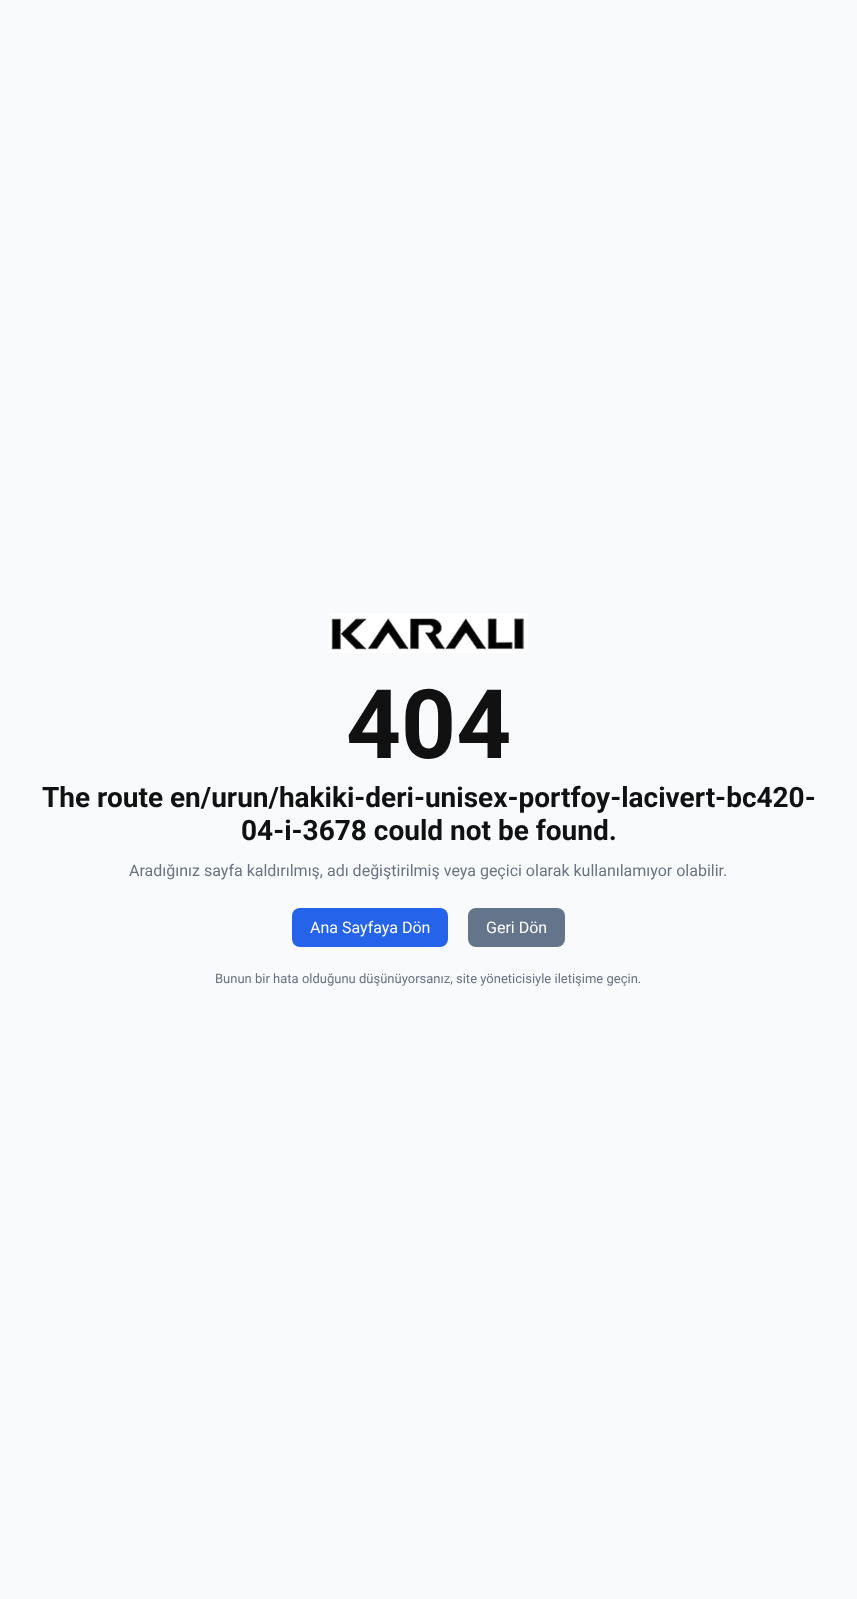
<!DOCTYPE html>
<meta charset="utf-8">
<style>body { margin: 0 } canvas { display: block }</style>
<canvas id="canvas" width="857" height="1599"></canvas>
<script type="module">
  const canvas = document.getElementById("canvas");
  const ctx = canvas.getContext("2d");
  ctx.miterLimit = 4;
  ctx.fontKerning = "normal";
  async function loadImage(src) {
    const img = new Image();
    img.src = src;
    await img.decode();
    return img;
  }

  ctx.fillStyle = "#f8fafc";
  ctx.fillRect(0, 0, 857, 1599);
  ctx.drawImage(await loadImage("img1.png"), 329, 613, 199, 40);
  ctx.font = "bold 96px Roboto";
  ctx.fillStyle = "#111111";
  ctx.fillText("404", 346, 758);
  ctx.font = "bold 28px Roboto";
  ctx.fillText("The route en/urun/hakiki-deri-unisex-portfoy-lacivert-bc420-", 42, 807);
  ctx.fillText("04-i-3678 could not be found.", 241, 840);
  ctx.font = "16px Roboto";
  ctx.fillStyle = "#6b7280";
  ctx.fillText("Aradığınız sayfa kaldırılmış, adı değiştirilmiş veya geçici olarak kullanılamıyor olabilir.", 129, 876);
  ctx.fillStyle = "#2563eb";
  ctx.beginPath();
  ctx.roundRect(292, 908, 156, 39, 8);
  ctx.fill();
  ctx.fillStyle = "#ffffff";
  ctx.fillText("Ana Sayfaya Dön", 310, 933);
  ctx.fillStyle = "#64748b";
  ctx.beginPath();
  ctx.roundRect(468, 908, 97, 39, 8);
  ctx.fill();
  ctx.fillStyle = "#ffffff";
  ctx.fillText("Geri Dön", 486, 933);
  ctx.font = "13px Roboto";
  ctx.fillStyle = "#6b7280";
  ctx.fillText("Bunun bir hata olduğunu düşünüyorsanız, site yöneticisiyle iletişime geçin.", 215, 983);
</script>
